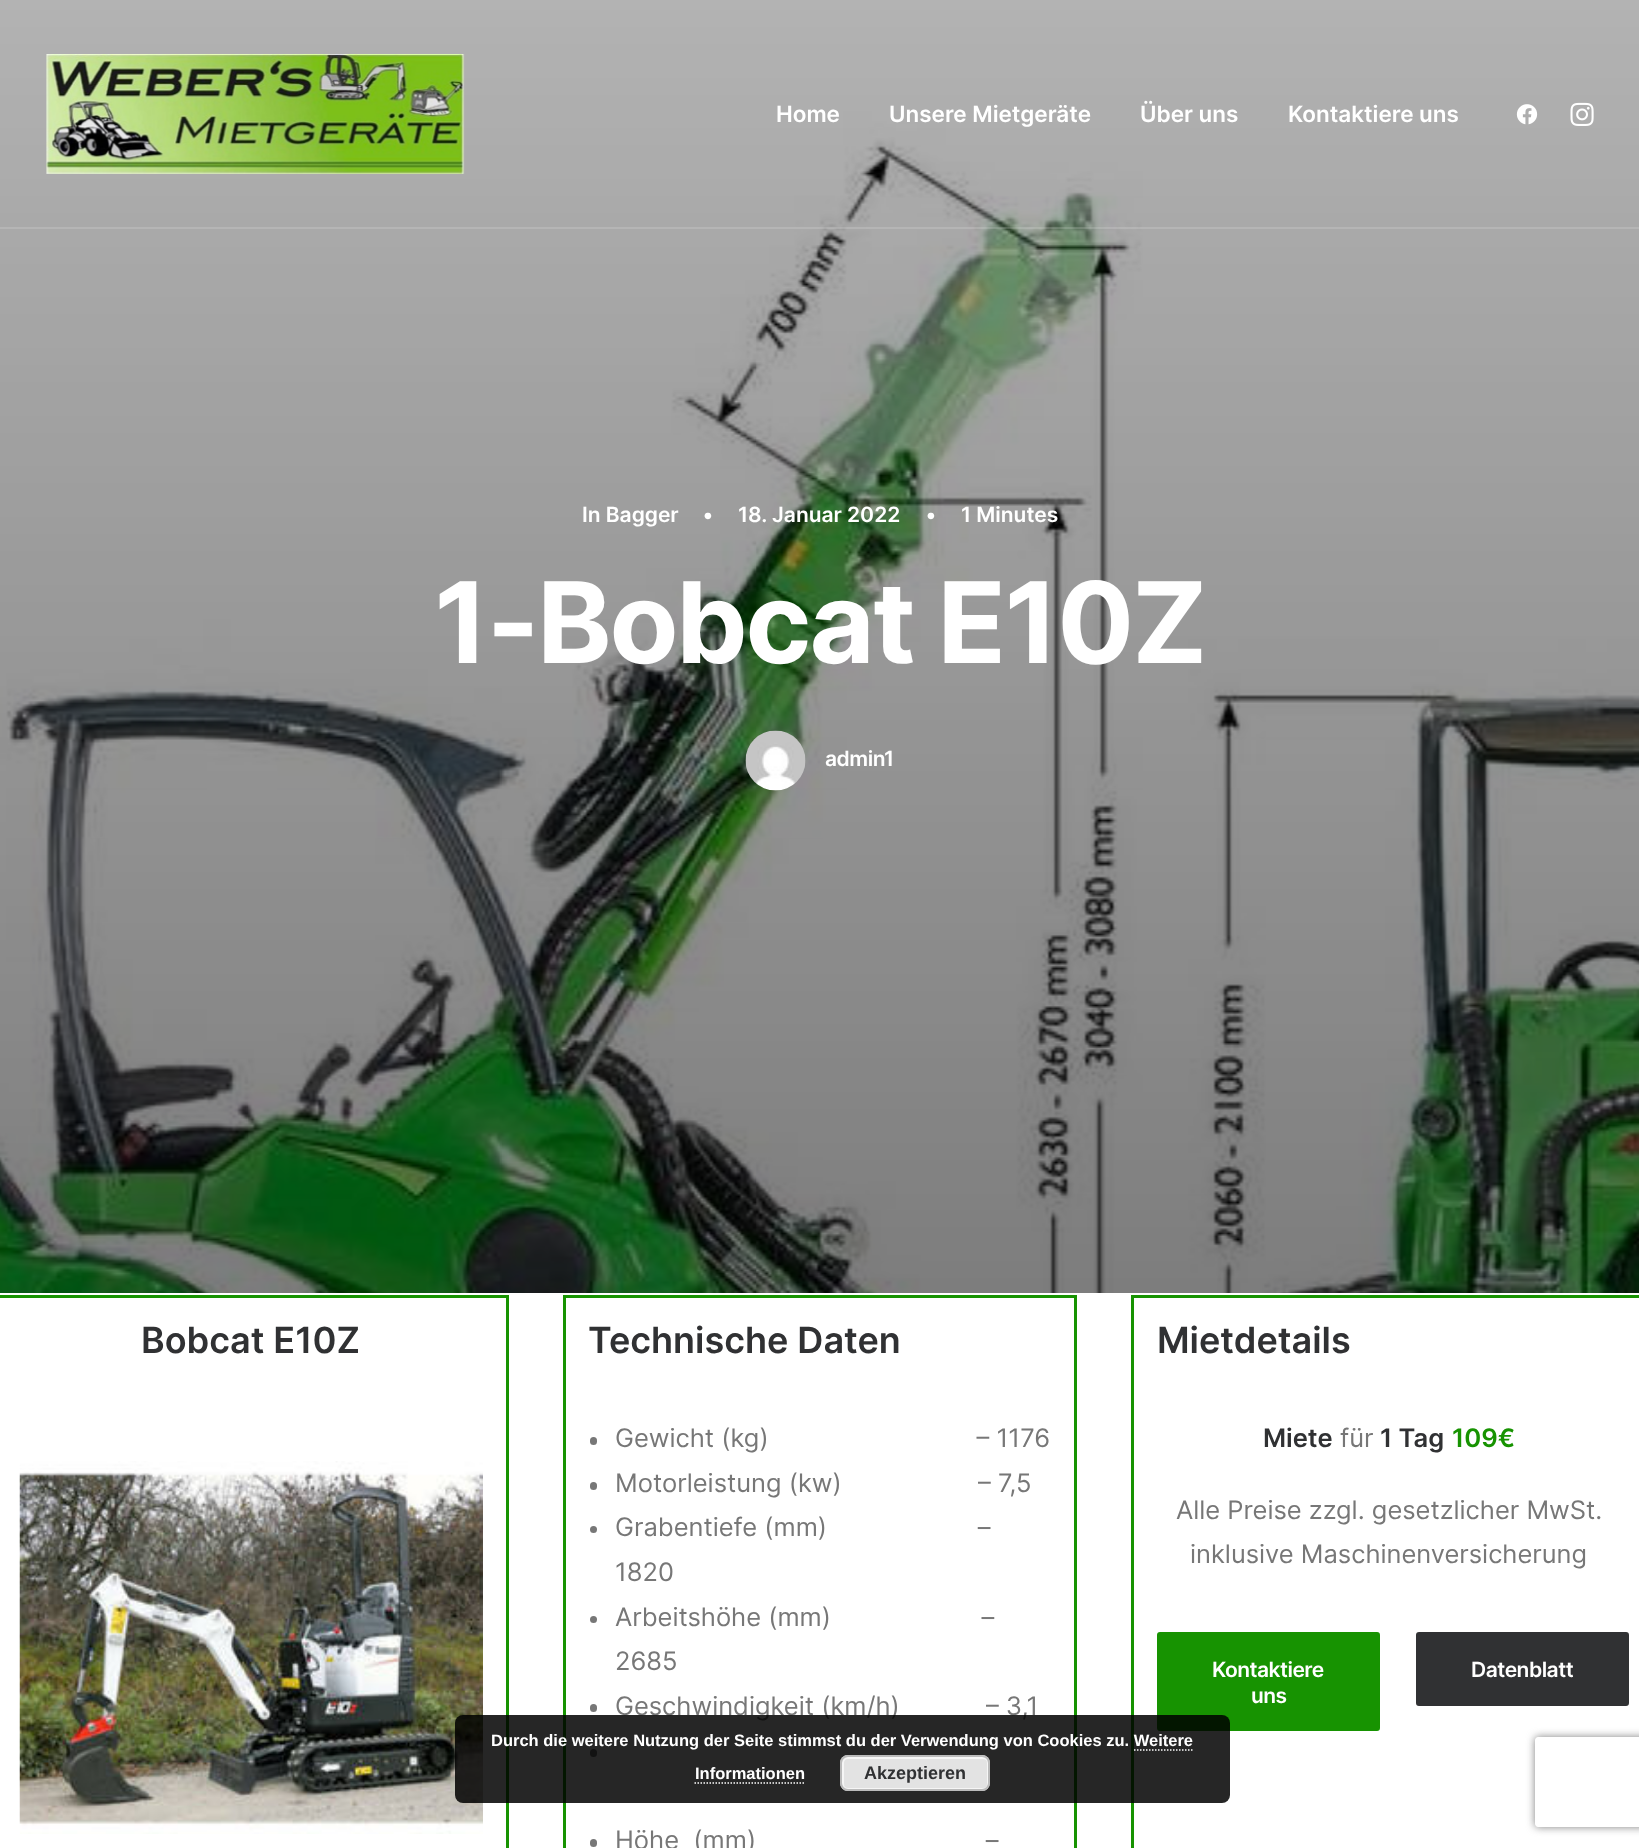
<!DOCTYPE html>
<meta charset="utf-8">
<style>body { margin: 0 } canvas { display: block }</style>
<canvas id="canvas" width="1639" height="1848"></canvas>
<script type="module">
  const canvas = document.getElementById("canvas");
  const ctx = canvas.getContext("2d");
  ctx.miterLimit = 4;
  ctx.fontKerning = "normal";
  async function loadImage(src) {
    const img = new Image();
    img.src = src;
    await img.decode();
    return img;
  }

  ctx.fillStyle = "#ffffff";
  ctx.fillRect(0, 0, 1639, 1848);
  ctx.drawImage(await loadImage("img4.png"), 0, 0, 1639, 1293);
  ctx.drawImage(await loadImage("img1.png"), 46, 54, 419, 120);
  ctx.font = "600 22.5px Inter";
  ctx.fillText("Home", 776, 122);
  ctx.fillText("Unsere Mietgeräte", 889, 122);
  ctx.fillText("Über uns", 1140, 122);
  ctx.fillText("Kontaktiere uns", 1288, 122);
  ctx.drawImage(await loadImage("img2.png"), 1516, 104, 22, 21);
  ctx.drawImage(await loadImage("img3.png"), 1570, 102, 24, 24);
  ctx.fillStyle = "rgba(255, 255, 255, 0.15)";
  ctx.fillRect(0, 227, 1639, 2);
  ctx.font = "600 21px Inter";
  ctx.fillStyle = "#ffffff";
  ctx.fillText("In Bagger", 582, 522);
  ctx.font = "21px Inter";
  ctx.fillText("•", 702, 522);
  ctx.font = "600 21px Inter";
  ctx.fillText("18. Januar 2022", 738, 522);
  ctx.font = "21px Inter";
  ctx.fillText("•", 925, 522);
  ctx.font = "600 21px Inter";
  ctx.fillText("1 Minutes", 961, 522);
  ctx.letterSpacing = "-2.25px";
  ctx.font = "bold 112.5px Inter";
  ctx.fillText("1-Bobcat E10Z", 434, 663);
  ctx.drawImage(await loadImage("img5.png"), 745, 730, 61, 61);
  ctx.letterSpacing = "-0.5px";
  ctx.font = "600 21px Inter";
  ctx.fillText("admin1", 825, 766);
  ctx.strokeStyle = "#179301";
  ctx.lineWidth = 3;
  ctx.strokeRect(-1.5, 1296.5, 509, 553);
  ctx.letterSpacing = "0px";
  ctx.font = "600 36px Inter";
  ctx.fillStyle = "#303133";
  ctx.fillText("Bobcat E10Z", 141, 1353);
  ctx.drawImage(await loadImage("img6.png"), 19, 1461, 464, 373);
  ctx.strokeRect(564.5, 1296.5, 511, 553);
  ctx.fillText("Technische Daten", 588, 1353);
  ctx.fillStyle = "#777777";
  ctx.beginPath();
  ctx.roundRect(590, 1437, 7, 8, 3.5);
  ctx.fill();
  ctx.font = "25.5px Inter";
  ctx.fillText("Gewicht (kg)                             – 1176", 615, 1447);
  ctx.beginPath();
  ctx.roundRect(590, 1482, 7, 8, 3.5);
  ctx.fill();
  ctx.fillText("Motorleistung (kw)                   – 7,5", 615, 1492);
  ctx.beginPath();
  ctx.arc(593.5, 1529.5, 3.5, 0, Math.PI * 2);
  ctx.fill();
  ctx.fillText("Grabentiefe (mm)                     –", 615, 1536);
  ctx.fillText("1820", 615, 1581);
  ctx.beginPath();
  ctx.arc(593.5, 1619.5, 3.5, 0, Math.PI * 2);
  ctx.fill();
  ctx.fillText("Arbeitshöhe (mm)                     –", 615, 1626);
  ctx.fillText("2685", 615, 1670);
  ctx.beginPath();
  ctx.roundRect(590, 1704, 7, 8, 3.5);
  ctx.fill();
  ctx.fillText("Geschwindigkeit (km/h)            – 3,1", 615, 1715);
  ctx.beginPath();
  ctx.roundRect(590, 1749, 7, 8, 3.5);
  ctx.fill();
  ctx.beginPath();
  ctx.roundRect(590, 1839, 7, 8, 3.5);
  ctx.fill();
  ctx.fillText("Höhe  (mm)                                –", 615, 1849);
  ctx.strokeRect(1132.5, 1296.5, 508, 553);
  ctx.font = "600 36px Inter";
  ctx.fillStyle = "#303133";
  ctx.fillText("Mietdetails", 1157, 1353);
  ctx.font = "600 25.5px Inter";
  ctx.fillText("Miete", 1263, 1447);
  ctx.font = "25.5px Inter";
  ctx.fillStyle = "#777777";
  ctx.fillText("für", 1340, 1447);
  ctx.font = "600 25.5px Inter";
  ctx.fillStyle = "#303133";
  ctx.fillText("1 Tag", 1380, 1447);
  ctx.fillStyle = "#179301";
  ctx.fillText("109€", 1452, 1447);
  ctx.font = "25.5px Inter";
  ctx.fillStyle = "#777777";
  ctx.fillText("Alle Preise zzgl. gesetzlicher MwSt.", 1176, 1519);
  ctx.fillText("inklusive Maschinenversicherung", 1190, 1563);
  ctx.fillStyle = "#179301";
  ctx.beginPath();
  ctx.roundRect(1158, 1633, 221, 97, 2);
  ctx.fill();
  ctx.lineWidth = 2;
  ctx.stroke();
  ctx.letterSpacing = "-0.5px";
  ctx.font = "600 21px Inter";
  ctx.fillStyle = "#ffffff";
  ctx.fillText("Kontaktiere", 1212, 1677);
  ctx.fillText("uns", 1251, 1703);
  ctx.fillStyle = "#303133";
  ctx.beginPath();
  ctx.roundRect(1417, 1633, 211, 72, 2);
  ctx.fill();
  ctx.strokeStyle = "#303133";
  ctx.stroke();
  ctx.fillStyle = "#ffffff";
  ctx.fillText("Datenblatt", 1471, 1677);
  ctx.fillStyle = "rgba(0, 0, 0, 0.85)";
  ctx.beginPath();
  ctx.roundRect(455, 1715, 775, 88, 8);
  ctx.fill();
  ctx.letterSpacing = "0px";
  ctx.font = "bold 16.5px Liberation Sans";
  ctx.fillStyle = "#ffffff";
  ctx.fillText("Durch die weitere Nutzung der Seite stimmst du der Verwendung von Cookies zu. Weitere", 491, 1746);
  ctx.fillText("Informationen", 695, 1779);
  ctx.beginPath();
  ctx.moveTo(1134, 1750);
  ctx.lineTo(1194, 1750);
  ctx.strokeStyle = "#ffffff";
  ctx.lineWidth = 1.5;
  ctx.setLineDash([1.5, 1.5]);
  ctx.stroke();
  ctx.beginPath();
  ctx.moveTo(694.5, 1783);
  ctx.lineTo(805.5, 1783);
  ctx.stroke();
  ctx.fillStyle = "#e3e3e3";
  ctx.beginPath();
  ctx.roundRect(840, 1755, 150, 36, 8);
  ctx.fill();
  ctx.beginPath();
  ctx.roundRect(843, 1758, 145, 31, 5);
  ctx.strokeStyle = "#f6f6f6";
  ctx.lineWidth = 2;
  ctx.setLineDash([]);
  ctx.stroke();
  ctx.beginPath();
  ctx.roundRect(841, 1756, 148, 34, 7);
  ctx.strokeStyle = "#bbbbbb";
  ctx.stroke();
  ctx.font = "bold 18px Liberation Sans";
  ctx.fillStyle = "#303133";
  ctx.fillText("Akzeptieren", 864, 1779);
  ctx.save();
  ctx.beginPath();
  ctx.moveTo(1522, 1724);
  ctx.lineTo(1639, 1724);
  ctx.lineTo(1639, 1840);
  ctx.lineTo(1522, 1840);
  ctx.closePath();
  ctx.moveTo(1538, 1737);
  ctx.lineTo(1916, 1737);
  ctx.bezierCurveTo(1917.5, 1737, 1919, 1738.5, 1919, 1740);
  ctx.lineTo(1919, 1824);
  ctx.bezierCurveTo(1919, 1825.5, 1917.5, 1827, 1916, 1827);
  ctx.lineTo(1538, 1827);
  ctx.bezierCurveTo(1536.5, 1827, 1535, 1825.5, 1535, 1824);
  ctx.lineTo(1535, 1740);
  ctx.bezierCurveTo(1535, 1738.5, 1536.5, 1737, 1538, 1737);
  ctx.closePath();
  ctx.clip("evenodd");
  ctx.fillStyle = "#808080";
  ctx.filter = "blur(4px)";
  ctx.beginPath();
  ctx.roundRect(1535, 1737, 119, 90, 3);
  ctx.fill();
  ctx.filter = "none";
  ctx.restore();
</script>
